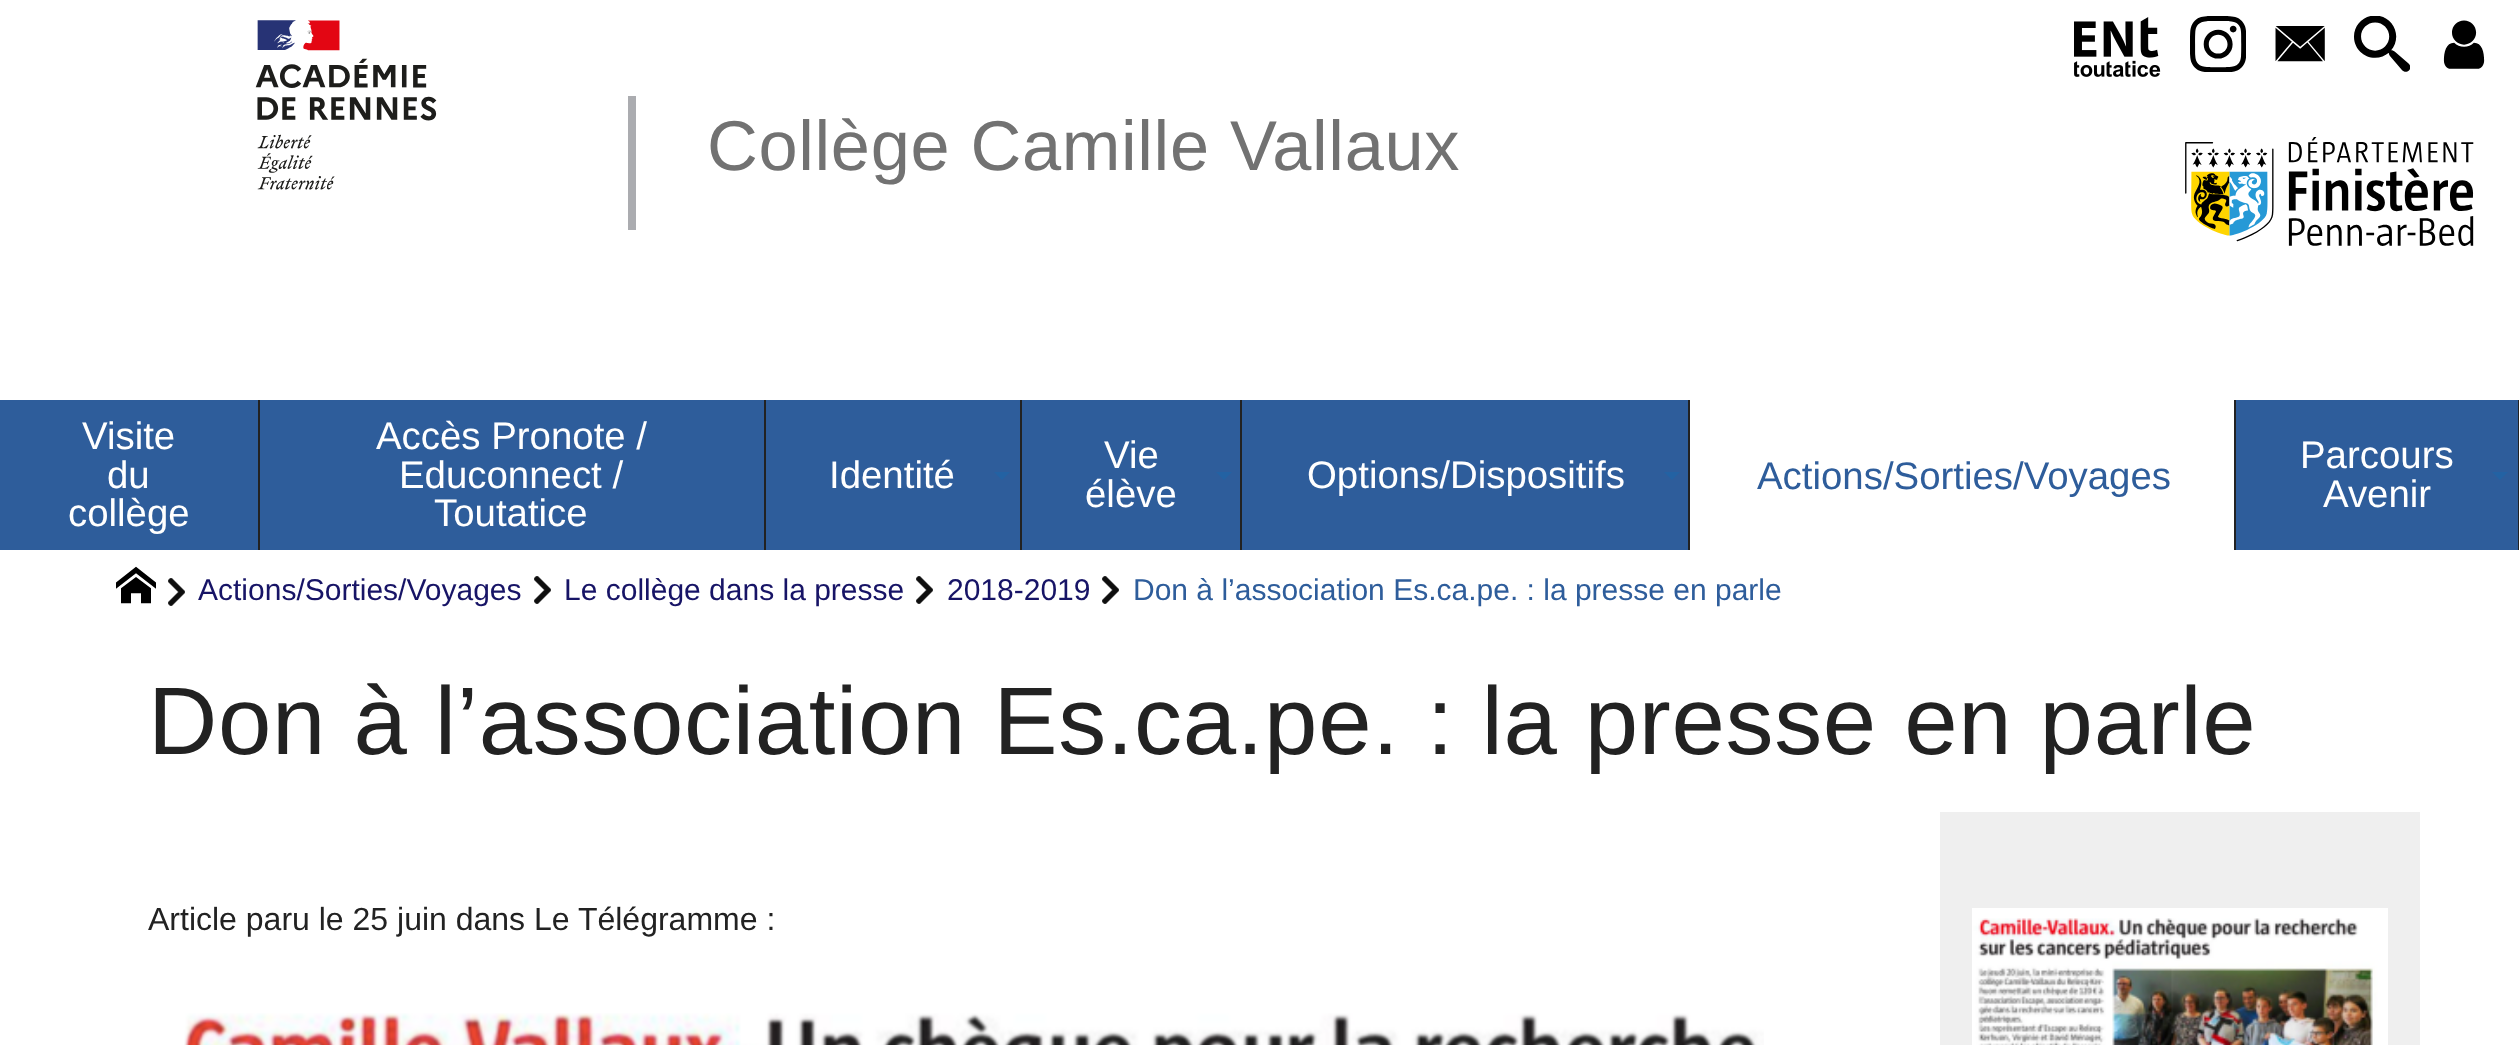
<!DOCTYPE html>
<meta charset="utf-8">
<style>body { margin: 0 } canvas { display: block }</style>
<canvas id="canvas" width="2519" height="1045"></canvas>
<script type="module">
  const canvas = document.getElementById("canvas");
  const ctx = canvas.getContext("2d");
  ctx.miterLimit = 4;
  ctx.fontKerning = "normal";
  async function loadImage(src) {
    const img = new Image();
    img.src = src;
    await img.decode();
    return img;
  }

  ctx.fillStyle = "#ffffff";
  ctx.fillRect(0, 0, 2519, 1045);
  ctx.drawImage(await loadImage("img1.png"), 255, 20, 182, 170);
  ctx.fillStyle = "#abacb0";
  ctx.fillRect(628, 96, 8, 134);
  ctx.letterSpacing = "0.65px";
  ctx.font = "70.4px Liberation Sans";
  ctx.fillStyle = "#727272";
  ctx.fillText("Collège Camille Vallaux", 707, 170);
  ctx.drawImage(await loadImage("img2.png"), 2074, 17, 87, 60);
  ctx.drawImage(await loadImage("img3.png"), 2190, 16, 56, 56);
  ctx.drawImage(await loadImage("img4.png"), 2275, 26, 50, 36);
  ctx.drawImage(await loadImage("img5.png"), 2354, 16, 56, 56);
  ctx.drawImage(await loadImage("img6.png"), 2443, 20, 42, 49);
  ctx.drawImage(await loadImage("img7.png"), 2185, 137, 289, 109);
  ctx.fillStyle = "#2e5d9b";
  ctx.fillRect(0, 400, 258, 150);
  ctx.letterSpacing = "0px";
  ctx.font = "38.4px Liberation Sans";
  ctx.fillStyle = "#ffffff";
  ctx.fillText("Visite", 82, 449);
  ctx.fillText("du", 107, 488);
  ctx.fillText("collège", 68, 526);
  ctx.fillStyle = "#222222";
  ctx.fillRect(258, 400, 2, 150);
  ctx.fillStyle = "#2e5d9b";
  ctx.fillRect(260, 400, 504, 150);
  ctx.fillStyle = "#ffffff";
  ctx.fillText("Accès Pronote /", 376, 449);
  ctx.fillText("Educonnect /", 399, 488);
  ctx.fillText("Toutatice", 434, 526);
  ctx.fillStyle = "#222222";
  ctx.fillRect(764, 400, 2, 150);
  ctx.fillStyle = "#2e5d9b";
  ctx.fillRect(766, 400, 254, 150);
  ctx.fillStyle = "#ffffff";
  ctx.fillText("Identité", 829, 488);
  ctx.fillStyle = "#2362a3";
  ctx.beginPath();
  ctx.moveTo(994, 472);
  ctx.lineTo(1010, 472);
  ctx.lineTo(1002, 480);
  ctx.closePath();
  ctx.fill();
  ctx.fillStyle = "#222222";
  ctx.fillRect(1020, 400, 2, 150);
  ctx.fillStyle = "#2e5d9b";
  ctx.fillRect(1022, 400, 218, 150);
  ctx.fillStyle = "#ffffff";
  ctx.fillText("Vie", 1104, 468);
  ctx.fillText("élève", 1085, 507);
  ctx.fillStyle = "#2362a3";
  ctx.beginPath();
  ctx.moveTo(1216, 472);
  ctx.lineTo(1232, 472);
  ctx.lineTo(1224, 480);
  ctx.closePath();
  ctx.fill();
  ctx.fillStyle = "#222222";
  ctx.fillRect(1240, 400, 2, 150);
  ctx.fillStyle = "#2e5d9b";
  ctx.fillRect(1242, 400, 446, 150);
  ctx.fillStyle = "#ffffff";
  ctx.fillText("Options/Dispositifs", 1307, 488);
  ctx.fillStyle = "#2362a3";
  ctx.beginPath();
  ctx.moveTo(1664, 472);
  ctx.lineTo(1680, 472);
  ctx.lineTo(1672, 480);
  ctx.closePath();
  ctx.fill();
  ctx.fillStyle = "#222222";
  ctx.fillRect(1688, 400, 2, 150);
  ctx.fillStyle = "#2e5d9b";
  ctx.fillText("Actions/Sorties/Voyages", 1757, 489);
  ctx.fillStyle = "#222222";
  ctx.fillRect(2234, 400, 2, 150);
  ctx.fillStyle = "#2e5d9b";
  ctx.fillRect(2236, 400, 282, 150);
  ctx.fillStyle = "#ffffff";
  ctx.fillText("Parcours", 2300, 468);
  ctx.fillText("Avenir", 2323, 507);
  ctx.fillStyle = "#2362a3";
  ctx.beginPath();
  ctx.moveTo(2492, 472);
  ctx.lineTo(2508, 472);
  ctx.lineTo(2500, 480);
  ctx.closePath();
  ctx.fill();
  ctx.fillStyle = "#222222";
  ctx.fillRect(2518, 400, 1, 150);
  ctx.drawImage(await loadImage("img8.png"), 168, 578, 17, 28);
  ctx.drawImage(await loadImage("img9.png"), 116, 566, 40, 38);
  ctx.font = "30px Liberation Sans";
  ctx.fillStyle = "#171466";
  ctx.fillText("Actions/Sorties/Voyages", 198, 600);
  ctx.drawImage(await loadImage("img8.png"), 534, 576, 17, 28);
  ctx.fillText("Le collège dans la presse", 564, 600);
  ctx.drawImage(await loadImage("img8.png"), 916, 576, 17, 28);
  ctx.fillText("2018-2019", 947, 600);
  ctx.drawImage(await loadImage("img8.png"), 1102, 576, 17, 28);
  ctx.fillStyle = "#2e5d9b";
  ctx.fillText("Don à l’association Es.ca.pe. : la presse en parle", 1133, 600);
  ctx.letterSpacing = "0.65px";
  ctx.font = "96px Liberation Sans";
  ctx.fillStyle = "#222222";
  ctx.fillText("Don à l’association Es.ca.pe. : la presse en parle", 148, 754);
  ctx.letterSpacing = "0px";
  ctx.font = "32px Liberation Sans";
  ctx.fillText("Article paru le 25 juin dans Le Télégramme :", 148, 930);
  ctx.drawImage(await loadImage("img10.png"), 184, 1013, 1580, 32);
  ctx.fillStyle = "#efefef";
  ctx.fillRect(1940, 812, 480, 233);
  ctx.drawImage(await loadImage("img11.png"), 1972, 908, 416, 137);
</script>
